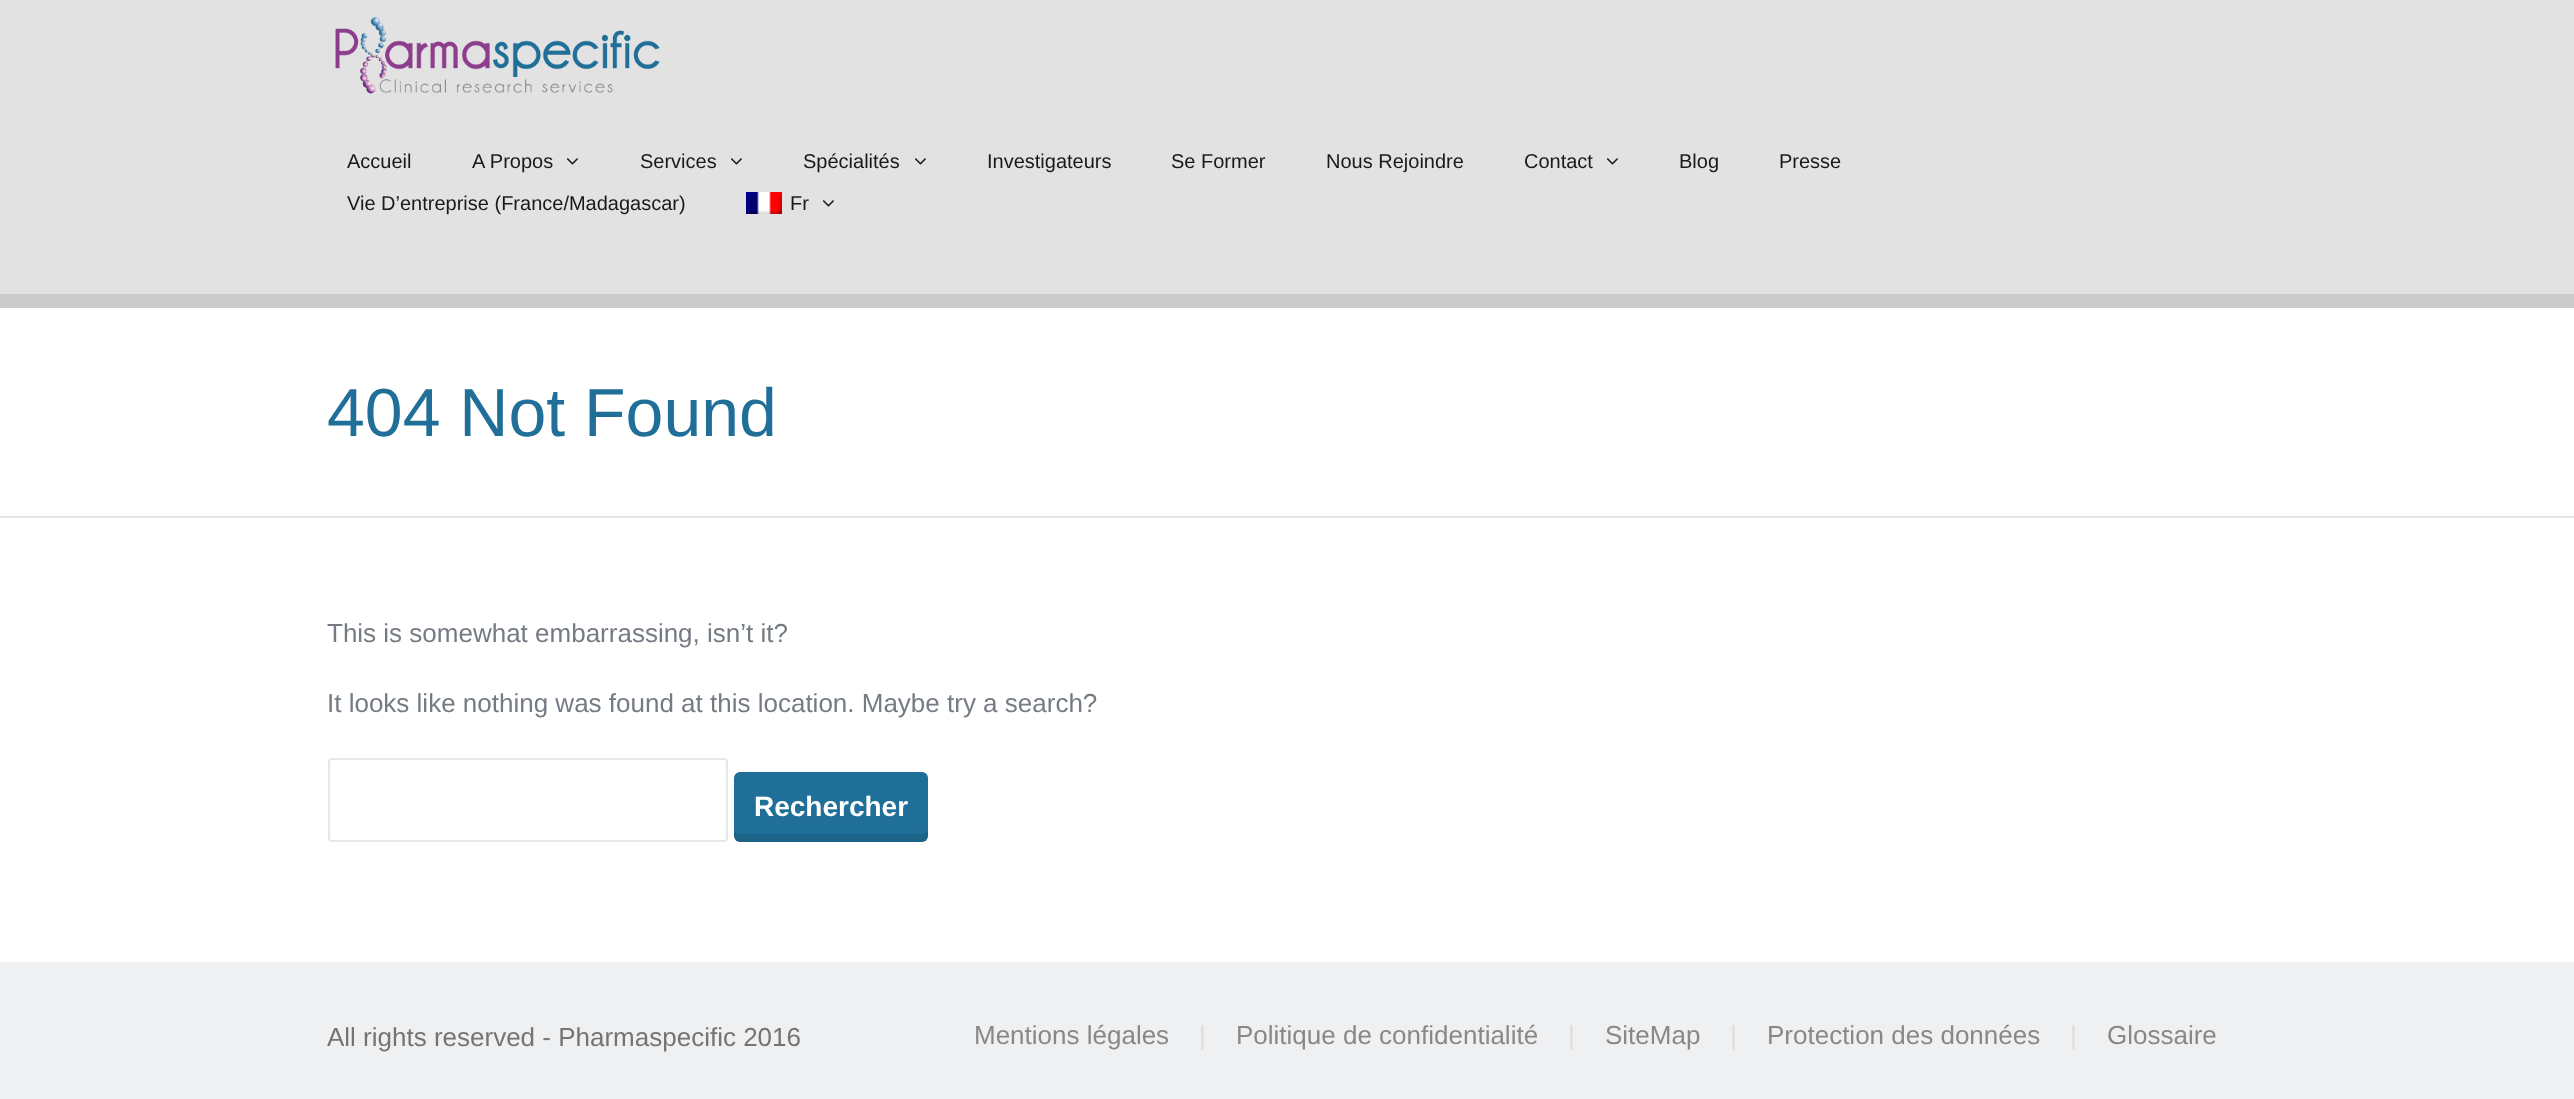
<!DOCTYPE html>
<meta charset="utf-8">
<style>body { margin: 0 } canvas { display: block }</style>
<canvas id="canvas" width="2574" height="1099"></canvas>
<script type="module">
  const canvas = document.getElementById("canvas");
  const ctx = canvas.getContext("2d");
  ctx.miterLimit = 4;
  ctx.fontKerning = "normal";
  async function loadImage(src) {
    const img = new Image();
    img.src = src;
    await img.decode();
    return img;
  }

  ctx.fillStyle = "#ffffff";
  ctx.fillRect(0, 0, 2574, 1099);
  ctx.fillStyle = "#e2e2e2";
  ctx.fillRect(0, 0, 2574, 294);
  ctx.fillStyle = "#cbcbcb";
  ctx.fillRect(0, 294, 2574, 14);
  ctx.drawImage(await loadImage("img1.png"), 335, 17, 325, 77);
  ctx.font = "20px Liberation Sans";
  ctx.fillStyle = "#1a191a";
  ctx.fillText("Accueil", 347, 168);
  ctx.fillText("A Propos", 472, 168);
  ctx.drawImage(await loadImage("img2.png"), 566, 158, 12, 7);
  ctx.fillText("Services", 640, 168);
  ctx.drawImage(await loadImage("img2.png"), 730, 158, 12, 7);
  ctx.fillText("Spécialités", 803, 168);
  ctx.drawImage(await loadImage("img2.png"), 914, 158, 12, 7);
  ctx.fillText("Investigateurs", 987, 168);
  ctx.fillText("Se Former", 1171, 168);
  ctx.fillText("Nous Rejoindre", 1326, 168);
  ctx.fillText("Contact", 1524, 168);
  ctx.drawImage(await loadImage("img2.png"), 1606, 158, 12, 7);
  ctx.fillText("Blog", 1679, 168);
  ctx.fillText("Presse", 1779, 168);
  ctx.fillText("Vie D’entreprise (France/Madagascar)", 347, 210);
  ctx.drawImage(await loadImage("img3.png"), 746, 192, 36, 22);
  ctx.fillText("Fr", 790, 210);
  ctx.drawImage(await loadImage("img2.png"), 822, 200, 12, 7);
  ctx.fillStyle = "#e3e5e7";
  ctx.fillRect(0, 516, 2574, 2);
  ctx.font = "68px Liberation Sans";
  ctx.fillStyle = "#206f98";
  ctx.fillText("404 Not Found", 327, 436);
  ctx.font = "26px Liberation Sans";
  ctx.fillStyle = "#757b83";
  ctx.fillText("This is somewhat embarrassing, isn’t it?", 327, 642);
  ctx.fillText("It looks like nothing was found at this location. Maybe try a search?", 327, 712);
  ctx.beginPath();
  ctx.roundRect(329, 759, 398, 82, 3);
  ctx.strokeStyle = "#e7e7e7";
  ctx.lineWidth = 2;
  ctx.stroke();
  ctx.fillStyle = "#206f98";
  ctx.beginPath();
  ctx.roundRect(734, 772, 194, 70, 6);
  ctx.fill();
  ctx.fillStyle = "rgba(0, 0, 0, 0.1)";
  ctx.beginPath();
  ctx.moveTo(734, 828);
  ctx.lineTo(734, 836);
  ctx.bezierCurveTo(734, 839, 737, 842, 740, 842);
  ctx.lineTo(922, 842);
  ctx.bezierCurveTo(925, 842, 928, 839, 928, 836);
  ctx.lineTo(928, 828);
  ctx.bezierCurveTo(928, 831, 925, 834, 922, 834);
  ctx.lineTo(740, 834);
  ctx.bezierCurveTo(737, 834, 734, 831, 734, 828);
  ctx.closePath();
  ctx.fill();
  ctx.font = "bold 28px Liberation Sans";
  ctx.fillStyle = "#ffffff";
  ctx.fillText("Rechercher", 754, 816);
  ctx.fillStyle = "#eff0f2";
  ctx.fillRect(0, 962, 2574, 137);
  ctx.font = "26px Liberation Sans";
  ctx.fillStyle = "#747474";
  ctx.fillText("All rights reserved - Pharmaspecific 2016", 327, 1046);
  ctx.fillStyle = "#888888";
  ctx.fillText("Mentions légales", 974, 1044);
  ctx.fillStyle = "#dddddd";
  ctx.fillText("|", 1199, 1044);
  ctx.fillStyle = "#888888";
  ctx.fillText("Politique de confidentialité", 1236, 1044);
  ctx.fillStyle = "#dddddd";
  ctx.fillText("|", 1568, 1044);
  ctx.fillStyle = "#888888";
  ctx.fillText("SiteMap", 1605, 1044);
  ctx.fillStyle = "#dddddd";
  ctx.fillText("|", 1730, 1044);
  ctx.fillStyle = "#888888";
  ctx.fillText("Protection des données", 1767, 1044);
  ctx.fillStyle = "#dddddd";
  ctx.fillText("|", 2070, 1044);
  ctx.fillStyle = "#888888";
  ctx.fillText("Glossaire", 2107, 1044);
</script>
